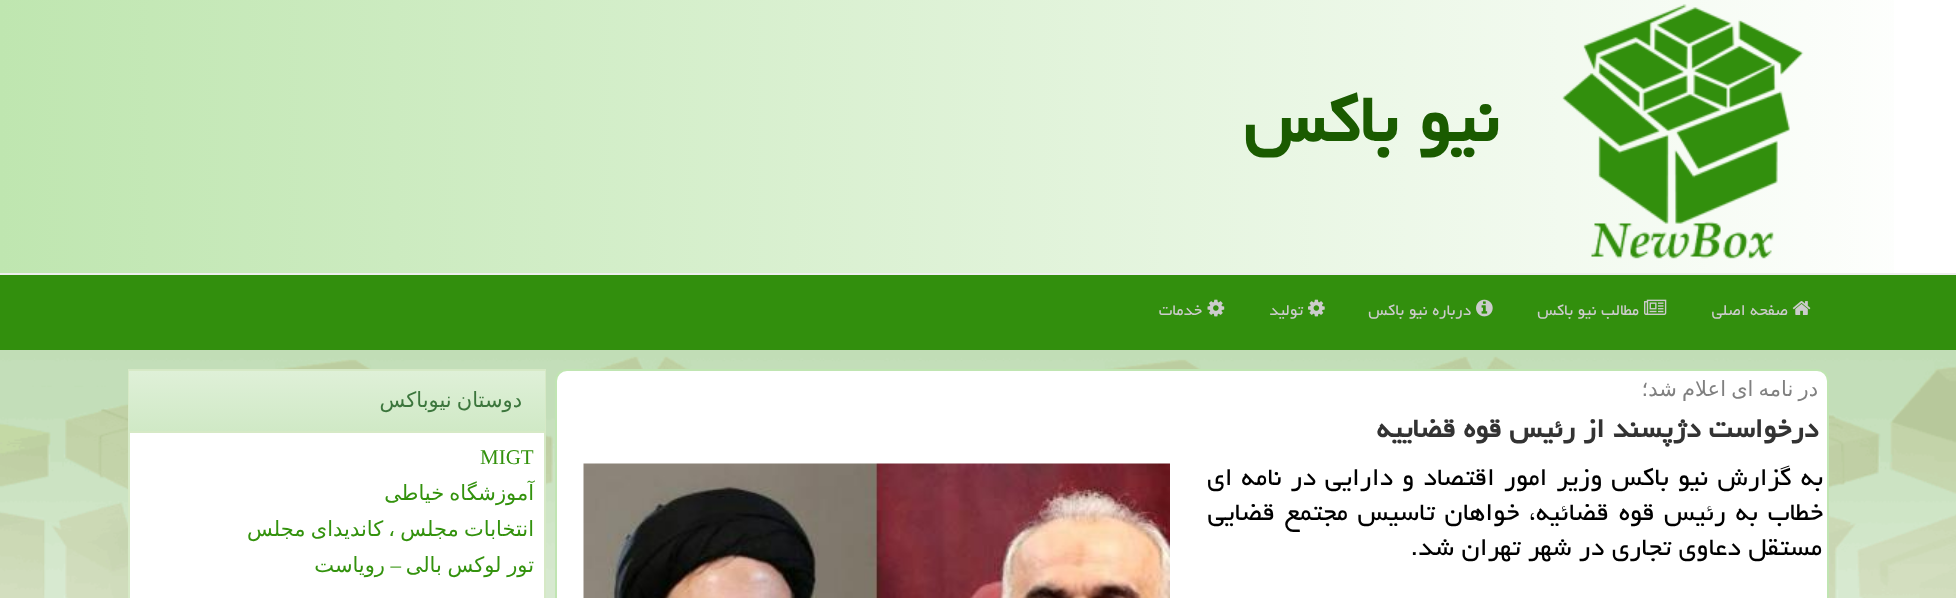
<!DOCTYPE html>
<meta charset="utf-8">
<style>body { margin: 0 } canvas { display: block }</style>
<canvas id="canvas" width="1956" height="598"></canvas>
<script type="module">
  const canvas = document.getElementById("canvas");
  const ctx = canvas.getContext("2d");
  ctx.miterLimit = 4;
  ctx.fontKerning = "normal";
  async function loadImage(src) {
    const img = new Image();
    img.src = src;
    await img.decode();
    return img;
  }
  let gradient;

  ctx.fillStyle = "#ffffff";
  ctx.fillRect(0, 0, 1956, 598);
  gradient = ctx.createLinearGradient(0, 137, 1956, 136);
  gradient.addColorStop(0, "#bfe6b0");
  gradient.addColorStop(1, "#ffffff");
  ctx.fillStyle = gradient;
  ctx.fillRect(0, 0, 1894, 273);
  ctx.fillStyle = "#eeeeee";
  ctx.fillRect(0, 273, 1956, 2);
  ctx.drawImage(await loadImage("img1.png"), 1562, 4, 242, 255);
  ctx.direction = "rtl";
  ctx.font = "bold 84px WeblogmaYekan";
  ctx.fillStyle = "#1a5b00";
  ctx.fillText("نیو باكس", 1498, 141);
  ctx.fillStyle = "#328f0d";
  ctx.fillRect(0, 275, 1956, 75);
  ctx.drawImage(await loadImage("img2.png"), 1792, 301, 19, 14);
  ctx.font = "19.5px WeblogmaYekan";
  ctx.fillStyle = "#cccccc";
  ctx.fillText("صفحه اصلی", 1788, 315);
  ctx.drawImage(await loadImage("img3.png"), 1644, 299, 23, 16);
  ctx.fillText("مطالب نیو باكس", 1639, 315);
  ctx.drawImage(await loadImage("img4.png"), 1476, 299, 17, 18);
  ctx.fillText("درباره نیو باكس", 1471, 315);
  ctx.drawImage(await loadImage("img5.png"), 1308, 299, 17, 18);
  ctx.fillText("تولید", 1303, 315);
  ctx.drawImage(await loadImage("img6.png"), 1207, 299, 18, 18);
  ctx.fillText("خدمات", 1202, 315);
  ctx.drawImage(await loadImage("img7.png"), 0, 350, 1956, 248);
  ctx.fillStyle = "#ffffff";
  ctx.beginPath();
  ctx.roundRect(556, 370, 1272, 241, 11);
  ctx.fill();
  ctx.strokeStyle = "#c0e5b2";
  ctx.lineWidth = 2;
  ctx.stroke();
  ctx.wordSpacing = "-1.5px";
  ctx.font = "21px DejaVu Sans";
  ctx.fillStyle = "#808080";
  ctx.fillText("در نامه ای اعلام شد؛", 1818, 396);
  ctx.wordSpacing = "0px";
  ctx.font = "bold 33.6px WeblogmaYekan";
  ctx.fillStyle = "#333333";
  ctx.fillText("درخواست دژپسند از رئیس قوه قضاییه", 1818, 437);
  ctx.wordSpacing = "1.5px";
  ctx.font = "31.5px WeblogmaYekan";
  ctx.fillStyle = "#000000";
  ctx.fillText("به گزارش نیو باكس وزیر امور اقتصاد و دارایی در نامه ای", 1823, 485);
  ctx.drawImage(await loadImage("img8.png"), 583, 463, 587, 135);
  ctx.wordSpacing = "2.25px";
  ctx.fillText("خطاب به رئیس قوه قضائیه، خواهان تاسیس مجتمع قضایی", 1823, 520);
  ctx.wordSpacing = "0px";
  ctx.fillText("مستقل دعاوی تجاری در شهر تهران شد.", 1822, 555);
  ctx.fillStyle = "#ffffff";
  ctx.fillRect(130, 433, 414, 165);
  ctx.strokeStyle = "#d6e9c6";
  ctx.strokeRect(129, 370, 416, 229);
  gradient = ctx.createLinearGradient(337, 370, 337, 431);
  gradient.addColorStop(0, "#dff0d8");
  gradient.addColorStop(1, "#d0e9c6");
  ctx.fillStyle = gradient;
  ctx.fillRect(129, 371, 416, 60);
  ctx.fillStyle = "#d6e9c6";
  ctx.fillRect(129, 431, 416, 2);
  ctx.wordSpacing = "-1.5px";
  ctx.font = "21px DejaVu Sans";
  ctx.fillStyle = "#3c763d";
  ctx.fillText("دوستان نیوباکس", 522, 407);
  ctx.wordSpacing = "0px";
  ctx.direction = "ltr";
  ctx.font = "21px Liberation Serif";
  ctx.fillStyle = "#33920d";
  ctx.fillText("MIGT", 480, 464);
  ctx.wordSpacing = "-1.5px";
  ctx.direction = "rtl";
  ctx.font = "21px DejaVu Sans";
  ctx.fillText("آموزشگاه خیاطی", 534, 500);
  ctx.fillText("انتخابات مجلس ، کاندیدای مجلس", 534, 536);
  ctx.wordSpacing = "-1px";
  ctx.fillText("تور لوکس بالی", 534, 572);
  ctx.wordSpacing = "0px";
  ctx.font = "21px Liberation Serif";
  ctx.fillText("–", 401, 572);
  ctx.font = "21px DejaVu Sans";
  ctx.fillText("رویاست", 385, 572);
</script>
